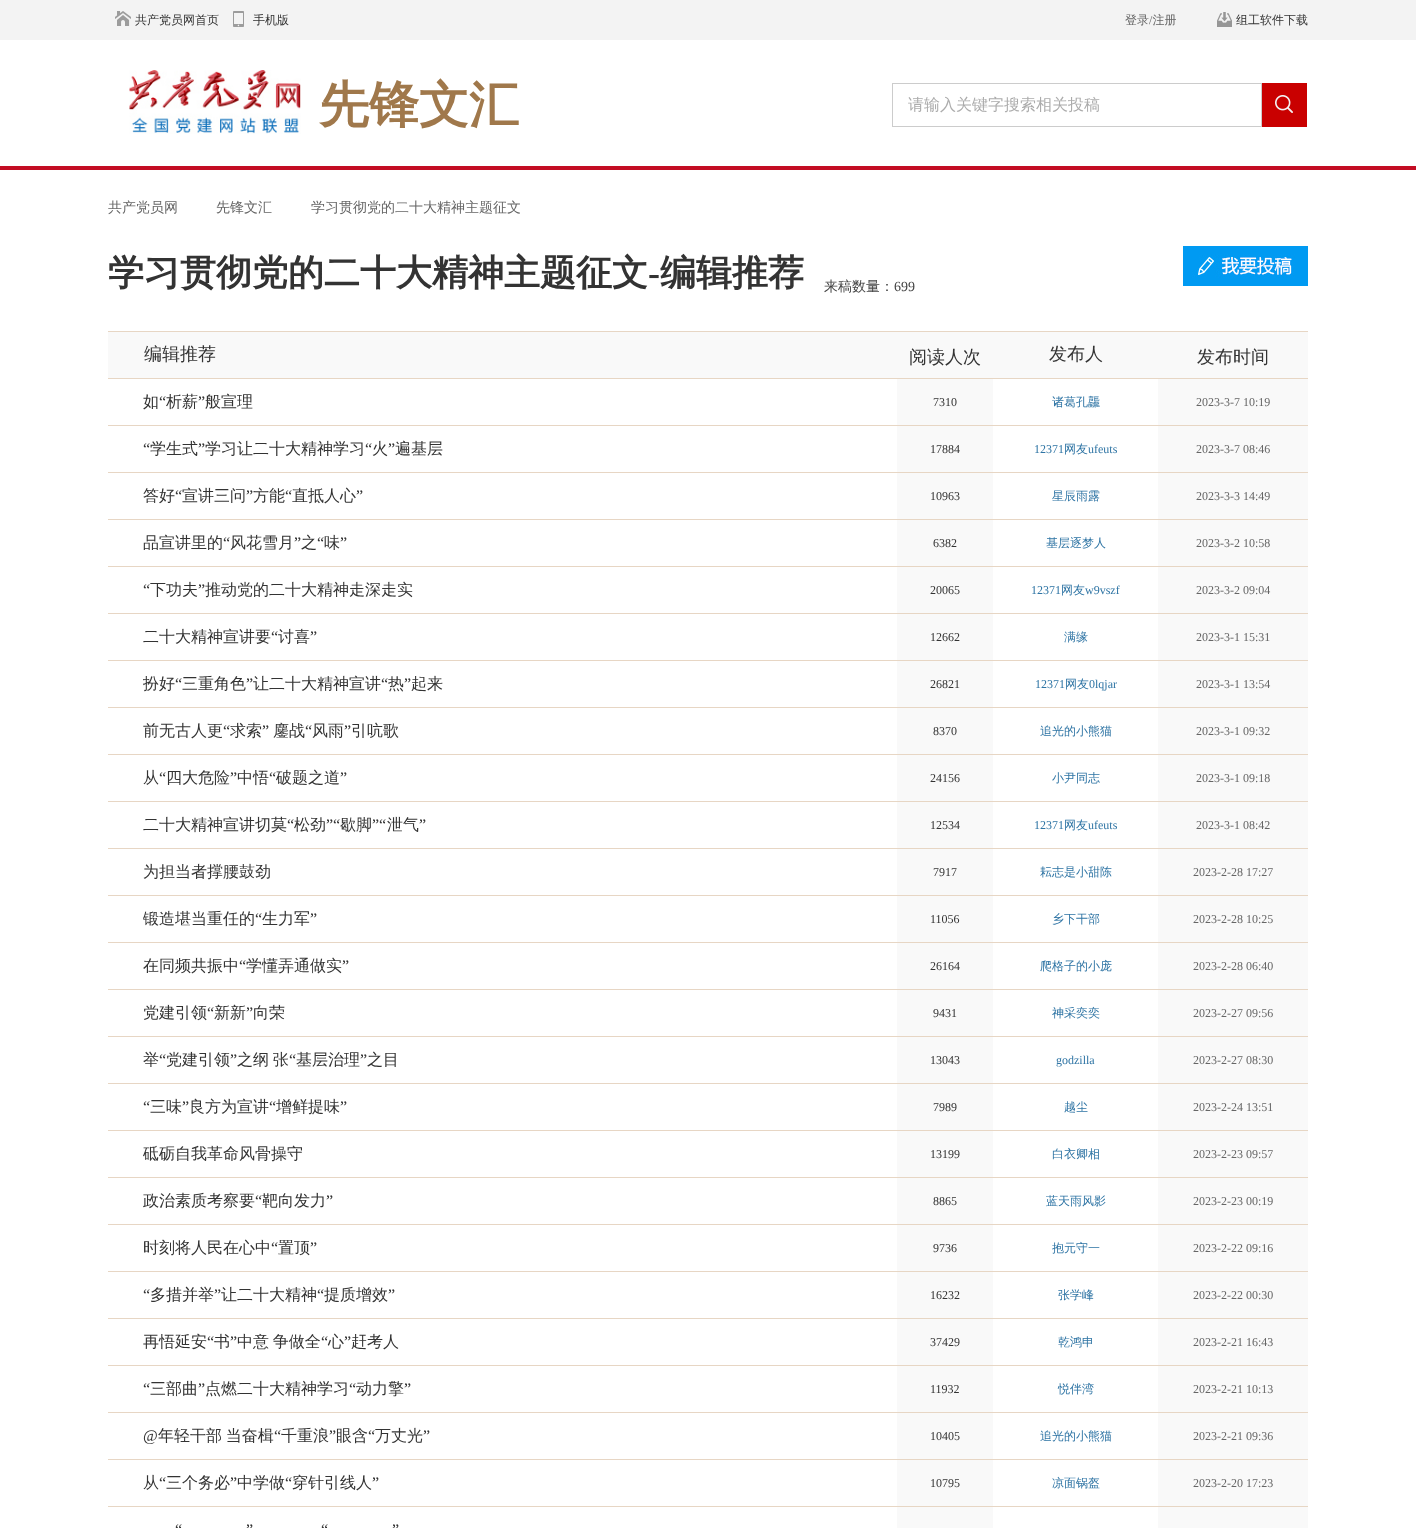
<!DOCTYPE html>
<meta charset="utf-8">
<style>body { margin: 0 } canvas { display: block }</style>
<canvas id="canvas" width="1416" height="1528"></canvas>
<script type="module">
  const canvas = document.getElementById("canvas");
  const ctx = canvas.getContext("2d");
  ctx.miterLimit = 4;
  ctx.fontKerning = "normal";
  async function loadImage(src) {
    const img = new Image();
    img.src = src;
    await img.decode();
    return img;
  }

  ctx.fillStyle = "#ffffff";
  ctx.fillRect(0, 0, 1416, 1528);
  ctx.fillStyle = "#f3f3f3";
  ctx.fillRect(0, 0, 1416, 40);
  ctx.drawImage(await loadImage("img1.png"), 115, 11, 16, 15);
  ctx.font = "500 12px WenQuanYi Zen Hei";
  ctx.fillStyle = "#333333";
  ctx.fillText("共产党员网首页", 135, 24);
  ctx.drawImage(await loadImage("img2.png"), 233, 11, 11, 16);
  ctx.fillText("手机版", 253, 24);
  ctx.fillStyle = "#666666";
  ctx.fillText("登录 注册", 1125, 24);
  ctx.font = "12px Liberation Serif";
  ctx.fillText("/", 1149, 24);
  ctx.drawImage(await loadImage("img3.png"), 1217, 12, 15, 15);
  ctx.font = "500 12px WenQuanYi Zen Hei";
  ctx.fillStyle = "#333333";
  ctx.fillText("组工软件下载", 1236, 24);
  ctx.fillStyle = "#c30d23";
  ctx.fillRect(0, 166, 1416, 4);
  ctx.drawImage(await loadImage("img4.png"), 129, 70, 172, 64);
  ctx.font = "bold 50px WenQuanYi Zen Hei";
  ctx.fillStyle = "#a0784b";
  ctx.fillText("先锋文汇", 319, 122);
  ctx.strokeStyle = "#cccccc";
  ctx.strokeRect(892.5, 83.5, 369, 43);
  ctx.font = "500 16px WenQuanYi Zen Hei";
  ctx.fillStyle = "#acacac";
  ctx.fillText("请输入关键字搜索相关投稿", 908, 110);
  ctx.fillStyle = "#c90000";
  ctx.fillRect(1262, 83, 45, 44);
  ctx.drawImage(await loadImage("img5.png"), 1275, 95, 18, 18);
  ctx.font = "500 14px WenQuanYi Zen Hei";
  ctx.fillStyle = "#666666";
  ctx.fillText("共产党员网", 108, 212);
  ctx.fillText("先锋文汇", 216, 212);
  ctx.fillText("学习贯彻党的二十大精神主题征文", 311, 212);
  ctx.font = "bold 36px WenQuanYi Zen Hei";
  ctx.fillStyle = "#333333";
  ctx.fillText("学习贯彻党的二十大精神主题征文", 108, 285);
  ctx.font = "bold 36px Liberation Serif";
  ctx.fillText("-", 648, 285);
  ctx.font = "bold 36px WenQuanYi Zen Hei";
  ctx.fillText("编辑推荐", 660, 285);
  ctx.font = "500 14px WenQuanYi Zen Hei";
  ctx.fillStyle = "#444444";
  ctx.fillText("来稿数量：", 824, 291);
  ctx.font = "14px Liberation Serif";
  ctx.fillText("699", 894, 291);
  ctx.drawImage(await loadImage("img6.png"), 1183, 246, 125, 40);
  ctx.fillStyle = "#e7d6c4";
  ctx.fillRect(108, 331, 1200, 1);
  ctx.fillRect(108, 378, 1200, 1);
  ctx.fillStyle = "#f9f9f9";
  ctx.fillRect(108, 332, 1200, 46);
  ctx.font = "500 18px WenQuanYi Zen Hei";
  ctx.fillStyle = "#333333";
  ctx.fillText("编辑推荐", 144, 360);
  ctx.fillText("阅读人次", 909, 363);
  ctx.fillText("发布人", 1049, 360);
  ctx.fillText("发布时间", 1197, 363);
  ctx.fillStyle = "#e7d6c4";
  ctx.fillRect(108, 425, 1200, 1);
  ctx.font = "500 16px WenQuanYi Zen Hei";
  ctx.fillStyle = "#333333";
  ctx.fillText("如", 143, 407);
  ctx.font = "16px Liberation Serif";
  ctx.fillText("“", 159, 407);
  ctx.font = "500 16px WenQuanYi Zen Hei";
  ctx.fillText("析薪", 166, 407);
  ctx.font = "16px Liberation Serif";
  ctx.fillText("”", 198, 407);
  ctx.font = "500 16px WenQuanYi Zen Hei";
  ctx.fillText("般宣理", 205, 407);
  ctx.fillStyle = "#f9f9f9";
  ctx.fillRect(897, 379, 96, 46);
  ctx.font = "12px Liberation Serif";
  ctx.fillStyle = "#333333";
  ctx.fillText("7310", 933, 406);
  ctx.font = "500 12px WenQuanYi Zen Hei";
  ctx.fillStyle = "#2e74a4";
  ctx.fillText("诸葛孔龘", 1052, 406);
  ctx.fillStyle = "#f9f9f9";
  ctx.fillRect(1158, 379, 150, 46);
  ctx.font = "12px Liberation Serif";
  ctx.fillStyle = "#666666";
  ctx.fillText("2023-3-7 10:19", 1196, 406);
  ctx.fillStyle = "#e7d6c4";
  ctx.fillRect(108, 472, 1200, 1);
  ctx.font = "16px Liberation Serif";
  ctx.fillStyle = "#333333";
  ctx.fillText("“", 143, 454);
  ctx.font = "500 16px WenQuanYi Zen Hei";
  ctx.fillText("学生式", 150, 454);
  ctx.font = "16px Liberation Serif";
  ctx.fillText("”", 198, 454);
  ctx.font = "500 16px WenQuanYi Zen Hei";
  ctx.fillText("学习让二十大精神学习", 205, 454);
  ctx.font = "16px Liberation Serif";
  ctx.fillText("“", 365, 454);
  ctx.font = "500 16px WenQuanYi Zen Hei";
  ctx.fillText("火", 372, 454);
  ctx.font = "16px Liberation Serif";
  ctx.fillText("”", 388, 454);
  ctx.font = "500 16px WenQuanYi Zen Hei";
  ctx.fillText("遍基层", 395, 454);
  ctx.fillStyle = "#f9f9f9";
  ctx.fillRect(897, 426, 96, 46);
  ctx.font = "12px Liberation Serif";
  ctx.fillStyle = "#333333";
  ctx.fillText("17884", 930, 453);
  ctx.fillStyle = "#2e74a4";
  ctx.fillText("12371", 1034, 453);
  ctx.font = "500 12px WenQuanYi Zen Hei";
  ctx.fillText("网友", 1064, 453);
  ctx.font = "12px Liberation Serif";
  ctx.fillText("ufeuts", 1088, 453);
  ctx.fillStyle = "#f9f9f9";
  ctx.fillRect(1158, 426, 150, 46);
  ctx.fillStyle = "#666666";
  ctx.fillText("2023-3-7 08:46", 1196, 453);
  ctx.fillStyle = "#e7d6c4";
  ctx.fillRect(108, 519, 1200, 1);
  ctx.font = "500 16px WenQuanYi Zen Hei";
  ctx.fillStyle = "#333333";
  ctx.fillText("答好", 143, 501);
  ctx.font = "16px Liberation Serif";
  ctx.fillText("“", 175, 501);
  ctx.font = "500 16px WenQuanYi Zen Hei";
  ctx.fillText("宣讲三问", 182, 501);
  ctx.font = "16px Liberation Serif";
  ctx.fillText("”", 246, 501);
  ctx.font = "500 16px WenQuanYi Zen Hei";
  ctx.fillText("方能", 253, 501);
  ctx.font = "16px Liberation Serif";
  ctx.fillText("“", 285, 501);
  ctx.font = "500 16px WenQuanYi Zen Hei";
  ctx.fillText("直抵人心", 292, 501);
  ctx.font = "16px Liberation Serif";
  ctx.fillText("”", 356, 501);
  ctx.fillStyle = "#f9f9f9";
  ctx.fillRect(897, 473, 96, 46);
  ctx.font = "12px Liberation Serif";
  ctx.fillStyle = "#333333";
  ctx.fillText("10963", 930, 500);
  ctx.font = "500 12px WenQuanYi Zen Hei";
  ctx.fillStyle = "#2e74a4";
  ctx.fillText("星辰雨露", 1052, 500);
  ctx.fillStyle = "#f9f9f9";
  ctx.fillRect(1158, 473, 150, 46);
  ctx.font = "12px Liberation Serif";
  ctx.fillStyle = "#666666";
  ctx.fillText("2023-3-3 14:49", 1196, 500);
  ctx.fillStyle = "#e7d6c4";
  ctx.fillRect(108, 566, 1200, 1);
  ctx.font = "500 16px WenQuanYi Zen Hei";
  ctx.fillStyle = "#333333";
  ctx.fillText("品宣讲里的", 143, 548);
  ctx.font = "16px Liberation Serif";
  ctx.fillText("“", 223, 548);
  ctx.font = "500 16px WenQuanYi Zen Hei";
  ctx.fillText("风花雪月", 230, 548);
  ctx.font = "16px Liberation Serif";
  ctx.fillText("”", 294, 548);
  ctx.font = "500 16px WenQuanYi Zen Hei";
  ctx.fillText("之", 301, 548);
  ctx.font = "16px Liberation Serif";
  ctx.fillText("“", 317, 548);
  ctx.font = "500 16px WenQuanYi Zen Hei";
  ctx.fillText("味", 324, 548);
  ctx.font = "16px Liberation Serif";
  ctx.fillText("”", 340, 548);
  ctx.fillStyle = "#f9f9f9";
  ctx.fillRect(897, 520, 96, 46);
  ctx.font = "12px Liberation Serif";
  ctx.fillStyle = "#333333";
  ctx.fillText("6382", 933, 547);
  ctx.font = "500 12px WenQuanYi Zen Hei";
  ctx.fillStyle = "#2e74a4";
  ctx.fillText("基层逐梦人", 1046, 547);
  ctx.fillStyle = "#f9f9f9";
  ctx.fillRect(1158, 520, 150, 46);
  ctx.font = "12px Liberation Serif";
  ctx.fillStyle = "#666666";
  ctx.fillText("2023-3-2 10:58", 1196, 547);
  ctx.fillStyle = "#e7d6c4";
  ctx.fillRect(108, 613, 1200, 1);
  ctx.font = "16px Liberation Serif";
  ctx.fillStyle = "#333333";
  ctx.fillText("“", 143, 595);
  ctx.font = "500 16px WenQuanYi Zen Hei";
  ctx.fillText("下功夫", 150, 595);
  ctx.font = "16px Liberation Serif";
  ctx.fillText("”", 198, 595);
  ctx.font = "500 16px WenQuanYi Zen Hei";
  ctx.fillText("推动党的二十大精神走深走实", 205, 595);
  ctx.fillStyle = "#f9f9f9";
  ctx.fillRect(897, 567, 96, 46);
  ctx.font = "12px Liberation Serif";
  ctx.fillStyle = "#333333";
  ctx.fillText("20065", 930, 594);
  ctx.fillStyle = "#2e74a4";
  ctx.fillText("12371", 1031, 594);
  ctx.font = "500 12px WenQuanYi Zen Hei";
  ctx.fillText("网友", 1061, 594);
  ctx.font = "12px Liberation Serif";
  ctx.fillText("w9vszf", 1085, 594);
  ctx.fillStyle = "#f9f9f9";
  ctx.fillRect(1158, 567, 150, 46);
  ctx.fillStyle = "#666666";
  ctx.fillText("2023-3-2 09:04", 1196, 594);
  ctx.fillStyle = "#e7d6c4";
  ctx.fillRect(108, 660, 1200, 1);
  ctx.font = "500 16px WenQuanYi Zen Hei";
  ctx.fillStyle = "#333333";
  ctx.fillText("二十大精神宣讲要", 143, 642);
  ctx.font = "16px Liberation Serif";
  ctx.fillText("“", 271, 642);
  ctx.font = "500 16px WenQuanYi Zen Hei";
  ctx.fillText("讨喜", 278, 642);
  ctx.font = "16px Liberation Serif";
  ctx.fillText("”", 310, 642);
  ctx.fillStyle = "#f9f9f9";
  ctx.fillRect(897, 614, 96, 46);
  ctx.font = "12px Liberation Serif";
  ctx.fillStyle = "#333333";
  ctx.fillText("12662", 930, 641);
  ctx.font = "500 12px WenQuanYi Zen Hei";
  ctx.fillStyle = "#2e74a4";
  ctx.fillText("满缘", 1064, 641);
  ctx.fillStyle = "#f9f9f9";
  ctx.fillRect(1158, 614, 150, 46);
  ctx.font = "12px Liberation Serif";
  ctx.fillStyle = "#666666";
  ctx.fillText("2023-3-1 15:31", 1196, 641);
  ctx.fillStyle = "#e7d6c4";
  ctx.fillRect(108, 707, 1200, 1);
  ctx.font = "500 16px WenQuanYi Zen Hei";
  ctx.fillStyle = "#333333";
  ctx.fillText("扮好", 143, 689);
  ctx.font = "16px Liberation Serif";
  ctx.fillText("“", 175, 689);
  ctx.font = "500 16px WenQuanYi Zen Hei";
  ctx.fillText("三重角色", 182, 689);
  ctx.font = "16px Liberation Serif";
  ctx.fillText("”", 246, 689);
  ctx.font = "500 16px WenQuanYi Zen Hei";
  ctx.fillText("让二十大精神宣讲", 253, 689);
  ctx.font = "16px Liberation Serif";
  ctx.fillText("“", 381, 689);
  ctx.font = "500 16px WenQuanYi Zen Hei";
  ctx.fillText("热", 388, 689);
  ctx.font = "16px Liberation Serif";
  ctx.fillText("”", 404, 689);
  ctx.font = "500 16px WenQuanYi Zen Hei";
  ctx.fillText("起来", 411, 689);
  ctx.fillStyle = "#f9f9f9";
  ctx.fillRect(897, 661, 96, 46);
  ctx.font = "12px Liberation Serif";
  ctx.fillStyle = "#333333";
  ctx.fillText("26821", 930, 688);
  ctx.fillStyle = "#2e74a4";
  ctx.fillText("12371", 1035, 688);
  ctx.font = "500 12px WenQuanYi Zen Hei";
  ctx.fillText("网友", 1065, 688);
  ctx.font = "12px Liberation Serif";
  ctx.fillText("0lqjar", 1089, 688);
  ctx.fillStyle = "#f9f9f9";
  ctx.fillRect(1158, 661, 150, 46);
  ctx.fillStyle = "#666666";
  ctx.fillText("2023-3-1 13:54", 1196, 688);
  ctx.fillStyle = "#e7d6c4";
  ctx.fillRect(108, 754, 1200, 1);
  ctx.font = "500 16px WenQuanYi Zen Hei";
  ctx.fillStyle = "#333333";
  ctx.fillText("前无古人更", 143, 736);
  ctx.font = "16px Liberation Serif";
  ctx.fillText("“", 223, 736);
  ctx.font = "500 16px WenQuanYi Zen Hei";
  ctx.fillText("求索", 230, 736);
  ctx.font = "16px Liberation Serif";
  ctx.fillText("”", 262, 736);
  ctx.font = "500 16px WenQuanYi Zen Hei";
  ctx.fillText("鏖战", 273, 736);
  ctx.font = "16px Liberation Serif";
  ctx.fillText("“", 305, 736);
  ctx.font = "500 16px WenQuanYi Zen Hei";
  ctx.fillText("风雨", 312, 736);
  ctx.font = "16px Liberation Serif";
  ctx.fillText("”", 344, 736);
  ctx.font = "500 16px WenQuanYi Zen Hei";
  ctx.fillText("引吭歌", 351, 736);
  ctx.fillStyle = "#f9f9f9";
  ctx.fillRect(897, 708, 96, 46);
  ctx.font = "12px Liberation Serif";
  ctx.fillStyle = "#333333";
  ctx.fillText("8370", 933, 735);
  ctx.font = "500 12px WenQuanYi Zen Hei";
  ctx.fillStyle = "#2e74a4";
  ctx.fillText("追光的小熊猫", 1040, 735);
  ctx.fillStyle = "#f9f9f9";
  ctx.fillRect(1158, 708, 150, 46);
  ctx.font = "12px Liberation Serif";
  ctx.fillStyle = "#666666";
  ctx.fillText("2023-3-1 09:32", 1196, 735);
  ctx.fillStyle = "#e7d6c4";
  ctx.fillRect(108, 801, 1200, 1);
  ctx.font = "500 16px WenQuanYi Zen Hei";
  ctx.fillStyle = "#333333";
  ctx.fillText("从", 143, 783);
  ctx.font = "16px Liberation Serif";
  ctx.fillText("“", 159, 783);
  ctx.font = "500 16px WenQuanYi Zen Hei";
  ctx.fillText("四大危险", 166, 783);
  ctx.font = "16px Liberation Serif";
  ctx.fillText("”", 230, 783);
  ctx.font = "500 16px WenQuanYi Zen Hei";
  ctx.fillText("中悟", 237, 783);
  ctx.font = "16px Liberation Serif";
  ctx.fillText("“", 269, 783);
  ctx.font = "500 16px WenQuanYi Zen Hei";
  ctx.fillText("破题之道", 276, 783);
  ctx.font = "16px Liberation Serif";
  ctx.fillText("”", 340, 783);
  ctx.fillStyle = "#f9f9f9";
  ctx.fillRect(897, 755, 96, 46);
  ctx.font = "12px Liberation Serif";
  ctx.fillStyle = "#333333";
  ctx.fillText("24156", 930, 782);
  ctx.font = "500 12px WenQuanYi Zen Hei";
  ctx.fillStyle = "#2e74a4";
  ctx.fillText("小尹同志", 1052, 782);
  ctx.fillStyle = "#f9f9f9";
  ctx.fillRect(1158, 755, 150, 46);
  ctx.font = "12px Liberation Serif";
  ctx.fillStyle = "#666666";
  ctx.fillText("2023-3-1 09:18", 1196, 782);
  ctx.fillStyle = "#e7d6c4";
  ctx.fillRect(108, 848, 1200, 1);
  ctx.font = "500 16px WenQuanYi Zen Hei";
  ctx.fillStyle = "#333333";
  ctx.fillText("二十大精神宣讲切莫", 143, 830);
  ctx.font = "16px Liberation Serif";
  ctx.fillText("“", 287, 830);
  ctx.font = "500 16px WenQuanYi Zen Hei";
  ctx.fillText("松劲", 294, 830);
  ctx.font = "16px Liberation Serif";
  ctx.fillText("”“", 326, 830);
  ctx.font = "500 16px WenQuanYi Zen Hei";
  ctx.fillText("歇脚", 340, 830);
  ctx.font = "16px Liberation Serif";
  ctx.fillText("”“", 372, 830);
  ctx.font = "500 16px WenQuanYi Zen Hei";
  ctx.fillText("泄气", 387, 830);
  ctx.font = "16px Liberation Serif";
  ctx.fillText("”", 419, 830);
  ctx.fillStyle = "#f9f9f9";
  ctx.fillRect(897, 802, 96, 46);
  ctx.font = "12px Liberation Serif";
  ctx.fillStyle = "#333333";
  ctx.fillText("12534", 930, 829);
  ctx.fillStyle = "#2e74a4";
  ctx.fillText("12371", 1034, 829);
  ctx.font = "500 12px WenQuanYi Zen Hei";
  ctx.fillText("网友", 1064, 829);
  ctx.font = "12px Liberation Serif";
  ctx.fillText("ufeuts", 1088, 829);
  ctx.fillStyle = "#f9f9f9";
  ctx.fillRect(1158, 802, 150, 46);
  ctx.fillStyle = "#666666";
  ctx.fillText("2023-3-1 08:42", 1196, 829);
  ctx.fillStyle = "#e7d6c4";
  ctx.fillRect(108, 895, 1200, 1);
  ctx.font = "500 16px WenQuanYi Zen Hei";
  ctx.fillStyle = "#333333";
  ctx.fillText("为担当者撑腰鼓劲", 143, 877);
  ctx.fillStyle = "#f9f9f9";
  ctx.fillRect(897, 849, 96, 46);
  ctx.font = "12px Liberation Serif";
  ctx.fillStyle = "#333333";
  ctx.fillText("7917", 933, 876);
  ctx.font = "500 12px WenQuanYi Zen Hei";
  ctx.fillStyle = "#2e74a4";
  ctx.fillText("耘志是小甜陈", 1040, 876);
  ctx.fillStyle = "#f9f9f9";
  ctx.fillRect(1158, 849, 150, 46);
  ctx.font = "12px Liberation Serif";
  ctx.fillStyle = "#666666";
  ctx.fillText("2023-2-28 17:27", 1193, 876);
  ctx.fillStyle = "#e7d6c4";
  ctx.fillRect(108, 942, 1200, 1);
  ctx.font = "500 16px WenQuanYi Zen Hei";
  ctx.fillStyle = "#333333";
  ctx.fillText("锻造堪当重任的", 143, 924);
  ctx.font = "16px Liberation Serif";
  ctx.fillText("“", 255, 924);
  ctx.font = "500 16px WenQuanYi Zen Hei";
  ctx.fillText("生力军", 262, 924);
  ctx.font = "16px Liberation Serif";
  ctx.fillText("”", 310, 924);
  ctx.fillStyle = "#f9f9f9";
  ctx.fillRect(897, 896, 96, 46);
  ctx.font = "12px Liberation Serif";
  ctx.fillStyle = "#333333";
  ctx.fillText("11056", 930, 923);
  ctx.font = "500 12px WenQuanYi Zen Hei";
  ctx.fillStyle = "#2e74a4";
  ctx.fillText("乡下干部", 1052, 923);
  ctx.fillStyle = "#f9f9f9";
  ctx.fillRect(1158, 896, 150, 46);
  ctx.font = "12px Liberation Serif";
  ctx.fillStyle = "#666666";
  ctx.fillText("2023-2-28 10:25", 1193, 923);
  ctx.fillStyle = "#e7d6c4";
  ctx.fillRect(108, 989, 1200, 1);
  ctx.font = "500 16px WenQuanYi Zen Hei";
  ctx.fillStyle = "#333333";
  ctx.fillText("在同频共振中", 143, 971);
  ctx.font = "16px Liberation Serif";
  ctx.fillText("“", 239, 971);
  ctx.font = "500 16px WenQuanYi Zen Hei";
  ctx.fillText("学懂弄通做实", 246, 971);
  ctx.font = "16px Liberation Serif";
  ctx.fillText("”", 342, 971);
  ctx.fillStyle = "#f9f9f9";
  ctx.fillRect(897, 943, 96, 46);
  ctx.font = "12px Liberation Serif";
  ctx.fillStyle = "#333333";
  ctx.fillText("26164", 930, 970);
  ctx.font = "500 12px WenQuanYi Zen Hei";
  ctx.fillStyle = "#2e74a4";
  ctx.fillText("爬格子的小庞", 1040, 970);
  ctx.fillStyle = "#f9f9f9";
  ctx.fillRect(1158, 943, 150, 46);
  ctx.font = "12px Liberation Serif";
  ctx.fillStyle = "#666666";
  ctx.fillText("2023-2-28 06:40", 1193, 970);
  ctx.fillStyle = "#e7d6c4";
  ctx.fillRect(108, 1036, 1200, 1);
  ctx.font = "500 16px WenQuanYi Zen Hei";
  ctx.fillStyle = "#333333";
  ctx.fillText("党建引领", 143, 1018);
  ctx.font = "16px Liberation Serif";
  ctx.fillText("“", 207, 1018);
  ctx.font = "500 16px WenQuanYi Zen Hei";
  ctx.fillText("新新", 214, 1018);
  ctx.font = "16px Liberation Serif";
  ctx.fillText("”", 246, 1018);
  ctx.font = "500 16px WenQuanYi Zen Hei";
  ctx.fillText("向荣", 253, 1018);
  ctx.fillStyle = "#f9f9f9";
  ctx.fillRect(897, 990, 96, 46);
  ctx.font = "12px Liberation Serif";
  ctx.fillStyle = "#333333";
  ctx.fillText("9431", 933, 1017);
  ctx.font = "500 12px WenQuanYi Zen Hei";
  ctx.fillStyle = "#2e74a4";
  ctx.fillText("神采奕奕", 1052, 1017);
  ctx.fillStyle = "#f9f9f9";
  ctx.fillRect(1158, 990, 150, 46);
  ctx.font = "12px Liberation Serif";
  ctx.fillStyle = "#666666";
  ctx.fillText("2023-2-27 09:56", 1193, 1017);
  ctx.fillStyle = "#e7d6c4";
  ctx.fillRect(108, 1083, 1200, 1);
  ctx.font = "500 16px WenQuanYi Zen Hei";
  ctx.fillStyle = "#333333";
  ctx.fillText("举", 143, 1065);
  ctx.font = "16px Liberation Serif";
  ctx.fillText("“", 159, 1065);
  ctx.font = "500 16px WenQuanYi Zen Hei";
  ctx.fillText("党建引领", 166, 1065);
  ctx.font = "16px Liberation Serif";
  ctx.fillText("”", 230, 1065);
  ctx.wordSpacing = "-1px";
  ctx.font = "500 16px WenQuanYi Zen Hei";
  ctx.fillText("之纲 张", 237, 1065);
  ctx.wordSpacing = "0px";
  ctx.font = "16px Liberation Serif";
  ctx.fillText("“", 289, 1065);
  ctx.font = "500 16px WenQuanYi Zen Hei";
  ctx.fillText("基层治理", 296, 1065);
  ctx.font = "16px Liberation Serif";
  ctx.fillText("”", 360, 1065);
  ctx.font = "500 16px WenQuanYi Zen Hei";
  ctx.fillText("之目", 367, 1065);
  ctx.fillStyle = "#f9f9f9";
  ctx.fillRect(897, 1037, 96, 46);
  ctx.font = "12px Liberation Serif";
  ctx.fillStyle = "#333333";
  ctx.fillText("13043", 930, 1064);
  ctx.fillStyle = "#2e74a4";
  ctx.fillText("godzilla", 1056, 1064);
  ctx.fillStyle = "#f9f9f9";
  ctx.fillRect(1158, 1037, 150, 46);
  ctx.fillStyle = "#666666";
  ctx.fillText("2023-2-27 08:30", 1193, 1064);
  ctx.fillStyle = "#e7d6c4";
  ctx.fillRect(108, 1130, 1200, 1);
  ctx.font = "16px Liberation Serif";
  ctx.fillStyle = "#333333";
  ctx.fillText("“", 143, 1112);
  ctx.font = "500 16px WenQuanYi Zen Hei";
  ctx.fillText("三味", 150, 1112);
  ctx.font = "16px Liberation Serif";
  ctx.fillText("”", 182, 1112);
  ctx.font = "500 16px WenQuanYi Zen Hei";
  ctx.fillText("良方为宣讲", 189, 1112);
  ctx.font = "16px Liberation Serif";
  ctx.fillText("“", 269, 1112);
  ctx.font = "500 16px WenQuanYi Zen Hei";
  ctx.fillText("增鲜提味", 276, 1112);
  ctx.font = "16px Liberation Serif";
  ctx.fillText("”", 340, 1112);
  ctx.fillStyle = "#f9f9f9";
  ctx.fillRect(897, 1084, 96, 46);
  ctx.font = "12px Liberation Serif";
  ctx.fillStyle = "#333333";
  ctx.fillText("7989", 933, 1111);
  ctx.font = "500 12px WenQuanYi Zen Hei";
  ctx.fillStyle = "#2e74a4";
  ctx.fillText("越尘", 1064, 1111);
  ctx.fillStyle = "#f9f9f9";
  ctx.fillRect(1158, 1084, 150, 46);
  ctx.font = "12px Liberation Serif";
  ctx.fillStyle = "#666666";
  ctx.fillText("2023-2-24 13:51", 1193, 1111);
  ctx.fillStyle = "#e7d6c4";
  ctx.fillRect(108, 1177, 1200, 1);
  ctx.font = "500 16px WenQuanYi Zen Hei";
  ctx.fillStyle = "#333333";
  ctx.fillText("砥砺自我革命风骨操守", 143, 1159);
  ctx.fillStyle = "#f9f9f9";
  ctx.fillRect(897, 1131, 96, 46);
  ctx.font = "12px Liberation Serif";
  ctx.fillStyle = "#333333";
  ctx.fillText("13199", 930, 1158);
  ctx.font = "500 12px WenQuanYi Zen Hei";
  ctx.fillStyle = "#2e74a4";
  ctx.fillText("白衣卿相", 1052, 1158);
  ctx.fillStyle = "#f9f9f9";
  ctx.fillRect(1158, 1131, 150, 46);
  ctx.font = "12px Liberation Serif";
  ctx.fillStyle = "#666666";
  ctx.fillText("2023-2-23 09:57", 1193, 1158);
  ctx.fillStyle = "#e7d6c4";
  ctx.fillRect(108, 1224, 1200, 1);
  ctx.font = "500 16px WenQuanYi Zen Hei";
  ctx.fillStyle = "#333333";
  ctx.fillText("政治素质考察要", 143, 1206);
  ctx.font = "16px Liberation Serif";
  ctx.fillText("“", 255, 1206);
  ctx.font = "500 16px WenQuanYi Zen Hei";
  ctx.fillText("靶向发力", 262, 1206);
  ctx.font = "16px Liberation Serif";
  ctx.fillText("”", 326, 1206);
  ctx.fillStyle = "#f9f9f9";
  ctx.fillRect(897, 1178, 96, 46);
  ctx.font = "12px Liberation Serif";
  ctx.fillStyle = "#333333";
  ctx.fillText("8865", 933, 1205);
  ctx.font = "500 12px WenQuanYi Zen Hei";
  ctx.fillStyle = "#2e74a4";
  ctx.fillText("蓝天雨风影", 1046, 1205);
  ctx.fillStyle = "#f9f9f9";
  ctx.fillRect(1158, 1178, 150, 46);
  ctx.font = "12px Liberation Serif";
  ctx.fillStyle = "#666666";
  ctx.fillText("2023-2-23 00:19", 1193, 1205);
  ctx.fillStyle = "#e7d6c4";
  ctx.fillRect(108, 1271, 1200, 1);
  ctx.font = "500 16px WenQuanYi Zen Hei";
  ctx.fillStyle = "#333333";
  ctx.fillText("时刻将人民在心中", 143, 1253);
  ctx.font = "16px Liberation Serif";
  ctx.fillText("“", 271, 1253);
  ctx.font = "500 16px WenQuanYi Zen Hei";
  ctx.fillText("置顶", 278, 1253);
  ctx.font = "16px Liberation Serif";
  ctx.fillText("”", 310, 1253);
  ctx.fillStyle = "#f9f9f9";
  ctx.fillRect(897, 1225, 96, 46);
  ctx.font = "12px Liberation Serif";
  ctx.fillStyle = "#333333";
  ctx.fillText("9736", 933, 1252);
  ctx.font = "500 12px WenQuanYi Zen Hei";
  ctx.fillStyle = "#2e74a4";
  ctx.fillText("抱元守一", 1052, 1252);
  ctx.fillStyle = "#f9f9f9";
  ctx.fillRect(1158, 1225, 150, 46);
  ctx.font = "12px Liberation Serif";
  ctx.fillStyle = "#666666";
  ctx.fillText("2023-2-22 09:16", 1193, 1252);
  ctx.fillStyle = "#e7d6c4";
  ctx.fillRect(108, 1318, 1200, 1);
  ctx.font = "16px Liberation Serif";
  ctx.fillStyle = "#333333";
  ctx.fillText("“", 143, 1300);
  ctx.font = "500 16px WenQuanYi Zen Hei";
  ctx.fillText("多措并举", 150, 1300);
  ctx.font = "16px Liberation Serif";
  ctx.fillText("”", 214, 1300);
  ctx.font = "500 16px WenQuanYi Zen Hei";
  ctx.fillText("让二十大精神", 221, 1300);
  ctx.font = "16px Liberation Serif";
  ctx.fillText("“", 317, 1300);
  ctx.font = "500 16px WenQuanYi Zen Hei";
  ctx.fillText("提质增效", 324, 1300);
  ctx.font = "16px Liberation Serif";
  ctx.fillText("”", 388, 1300);
  ctx.fillStyle = "#f9f9f9";
  ctx.fillRect(897, 1272, 96, 46);
  ctx.font = "12px Liberation Serif";
  ctx.fillStyle = "#333333";
  ctx.fillText("16232", 930, 1299);
  ctx.font = "500 12px WenQuanYi Zen Hei";
  ctx.fillStyle = "#2e74a4";
  ctx.fillText("张学峰", 1058, 1299);
  ctx.fillStyle = "#f9f9f9";
  ctx.fillRect(1158, 1272, 150, 46);
  ctx.font = "12px Liberation Serif";
  ctx.fillStyle = "#666666";
  ctx.fillText("2023-2-22 00:30", 1193, 1299);
  ctx.fillStyle = "#e7d6c4";
  ctx.fillRect(108, 1365, 1200, 1);
  ctx.font = "500 16px WenQuanYi Zen Hei";
  ctx.fillStyle = "#333333";
  ctx.fillText("再悟延安", 143, 1347);
  ctx.font = "16px Liberation Serif";
  ctx.fillText("“", 207, 1347);
  ctx.font = "500 16px WenQuanYi Zen Hei";
  ctx.fillText("书", 214, 1347);
  ctx.font = "16px Liberation Serif";
  ctx.fillText("”", 230, 1347);
  ctx.wordSpacing = "-1px";
  ctx.font = "500 16px WenQuanYi Zen Hei";
  ctx.fillText("中意 争做全", 237, 1347);
  ctx.wordSpacing = "0px";
  ctx.font = "16px Liberation Serif";
  ctx.fillText("“", 321, 1347);
  ctx.font = "500 16px WenQuanYi Zen Hei";
  ctx.fillText("心", 328, 1347);
  ctx.font = "16px Liberation Serif";
  ctx.fillText("”", 344, 1347);
  ctx.font = "500 16px WenQuanYi Zen Hei";
  ctx.fillText("赶考人", 351, 1347);
  ctx.fillStyle = "#f9f9f9";
  ctx.fillRect(897, 1319, 96, 46);
  ctx.font = "12px Liberation Serif";
  ctx.fillStyle = "#333333";
  ctx.fillText("37429", 930, 1346);
  ctx.font = "500 12px WenQuanYi Zen Hei";
  ctx.fillStyle = "#2e74a4";
  ctx.fillText("乾鸿申", 1058, 1346);
  ctx.fillStyle = "#f9f9f9";
  ctx.fillRect(1158, 1319, 150, 46);
  ctx.font = "12px Liberation Serif";
  ctx.fillStyle = "#666666";
  ctx.fillText("2023-2-21 16:43", 1193, 1346);
  ctx.fillStyle = "#e7d6c4";
  ctx.fillRect(108, 1412, 1200, 1);
  ctx.font = "16px Liberation Serif";
  ctx.fillStyle = "#333333";
  ctx.fillText("“", 143, 1394);
  ctx.font = "500 16px WenQuanYi Zen Hei";
  ctx.fillText("三部曲", 150, 1394);
  ctx.font = "16px Liberation Serif";
  ctx.fillText("”", 198, 1394);
  ctx.font = "500 16px WenQuanYi Zen Hei";
  ctx.fillText("点燃二十大精神学习", 205, 1394);
  ctx.font = "16px Liberation Serif";
  ctx.fillText("“", 349, 1394);
  ctx.font = "500 16px WenQuanYi Zen Hei";
  ctx.fillText("动力擎", 356, 1394);
  ctx.font = "16px Liberation Serif";
  ctx.fillText("”", 404, 1394);
  ctx.fillStyle = "#f9f9f9";
  ctx.fillRect(897, 1366, 96, 46);
  ctx.font = "12px Liberation Serif";
  ctx.fillStyle = "#333333";
  ctx.fillText("11932", 930, 1393);
  ctx.font = "500 12px WenQuanYi Zen Hei";
  ctx.fillStyle = "#2e74a4";
  ctx.fillText("悦伴湾", 1058, 1393);
  ctx.fillStyle = "#f9f9f9";
  ctx.fillRect(1158, 1366, 150, 46);
  ctx.font = "12px Liberation Serif";
  ctx.fillStyle = "#666666";
  ctx.fillText("2023-2-21 10:13", 1193, 1393);
  ctx.fillStyle = "#e7d6c4";
  ctx.fillRect(108, 1459, 1200, 1);
  ctx.font = "16px Liberation Serif";
  ctx.fillStyle = "#333333";
  ctx.fillText("@", 143, 1441);
  ctx.wordSpacing = "-1px";
  ctx.font = "500 16px WenQuanYi Zen Hei";
  ctx.fillText("年轻干部 当奋楫", 158, 1441);
  ctx.wordSpacing = "0px";
  ctx.font = "16px Liberation Serif";
  ctx.fillText("“", 274, 1441);
  ctx.font = "500 16px WenQuanYi Zen Hei";
  ctx.fillText("千重浪", 281, 1441);
  ctx.font = "16px Liberation Serif";
  ctx.fillText("”", 329, 1441);
  ctx.font = "500 16px WenQuanYi Zen Hei";
  ctx.fillText("眼含", 336, 1441);
  ctx.font = "16px Liberation Serif";
  ctx.fillText("“", 368, 1441);
  ctx.font = "500 16px WenQuanYi Zen Hei";
  ctx.fillText("万丈光", 375, 1441);
  ctx.font = "16px Liberation Serif";
  ctx.fillText("”", 423, 1441);
  ctx.fillStyle = "#f9f9f9";
  ctx.fillRect(897, 1413, 96, 46);
  ctx.font = "12px Liberation Serif";
  ctx.fillStyle = "#333333";
  ctx.fillText("10405", 930, 1440);
  ctx.font = "500 12px WenQuanYi Zen Hei";
  ctx.fillStyle = "#2e74a4";
  ctx.fillText("追光的小熊猫", 1040, 1440);
  ctx.fillStyle = "#f9f9f9";
  ctx.fillRect(1158, 1413, 150, 46);
  ctx.font = "12px Liberation Serif";
  ctx.fillStyle = "#666666";
  ctx.fillText("2023-2-21 09:36", 1193, 1440);
  ctx.fillStyle = "#e7d6c4";
  ctx.fillRect(108, 1506, 1200, 1);
  ctx.font = "500 16px WenQuanYi Zen Hei";
  ctx.fillStyle = "#333333";
  ctx.fillText("从", 143, 1488);
  ctx.font = "16px Liberation Serif";
  ctx.fillText("“", 159, 1488);
  ctx.font = "500 16px WenQuanYi Zen Hei";
  ctx.fillText("三个务必", 166, 1488);
  ctx.font = "16px Liberation Serif";
  ctx.fillText("”", 230, 1488);
  ctx.font = "500 16px WenQuanYi Zen Hei";
  ctx.fillText("中学做", 237, 1488);
  ctx.font = "16px Liberation Serif";
  ctx.fillText("“", 285, 1488);
  ctx.font = "500 16px WenQuanYi Zen Hei";
  ctx.fillText("穿针引线人", 292, 1488);
  ctx.font = "16px Liberation Serif";
  ctx.fillText("”", 372, 1488);
  ctx.fillStyle = "#f9f9f9";
  ctx.fillRect(897, 1460, 96, 46);
  ctx.font = "12px Liberation Serif";
  ctx.fillStyle = "#333333";
  ctx.fillText("10795", 930, 1487);
  ctx.font = "500 12px WenQuanYi Zen Hei";
  ctx.fillStyle = "#2e74a4";
  ctx.fillText("凉面锅盔", 1052, 1487);
  ctx.fillStyle = "#f9f9f9";
  ctx.fillRect(1158, 1460, 150, 46);
  ctx.font = "12px Liberation Serif";
  ctx.fillStyle = "#666666";
  ctx.fillText("2023-2-20 17:23", 1193, 1487);
  ctx.font = "16px Liberation Serif";
  ctx.fillStyle = "#333333";
  ctx.fillText("“", 175, 1535);
  ctx.fillText("”", 246, 1535);
  ctx.fillText("“", 321, 1535);
  ctx.fillText("”", 392, 1535);
  ctx.fillStyle = "#f9f9f9";
  ctx.fillRect(897, 1507, 96, 21);
  ctx.fillRect(1158, 1507, 150, 21);
</script>
